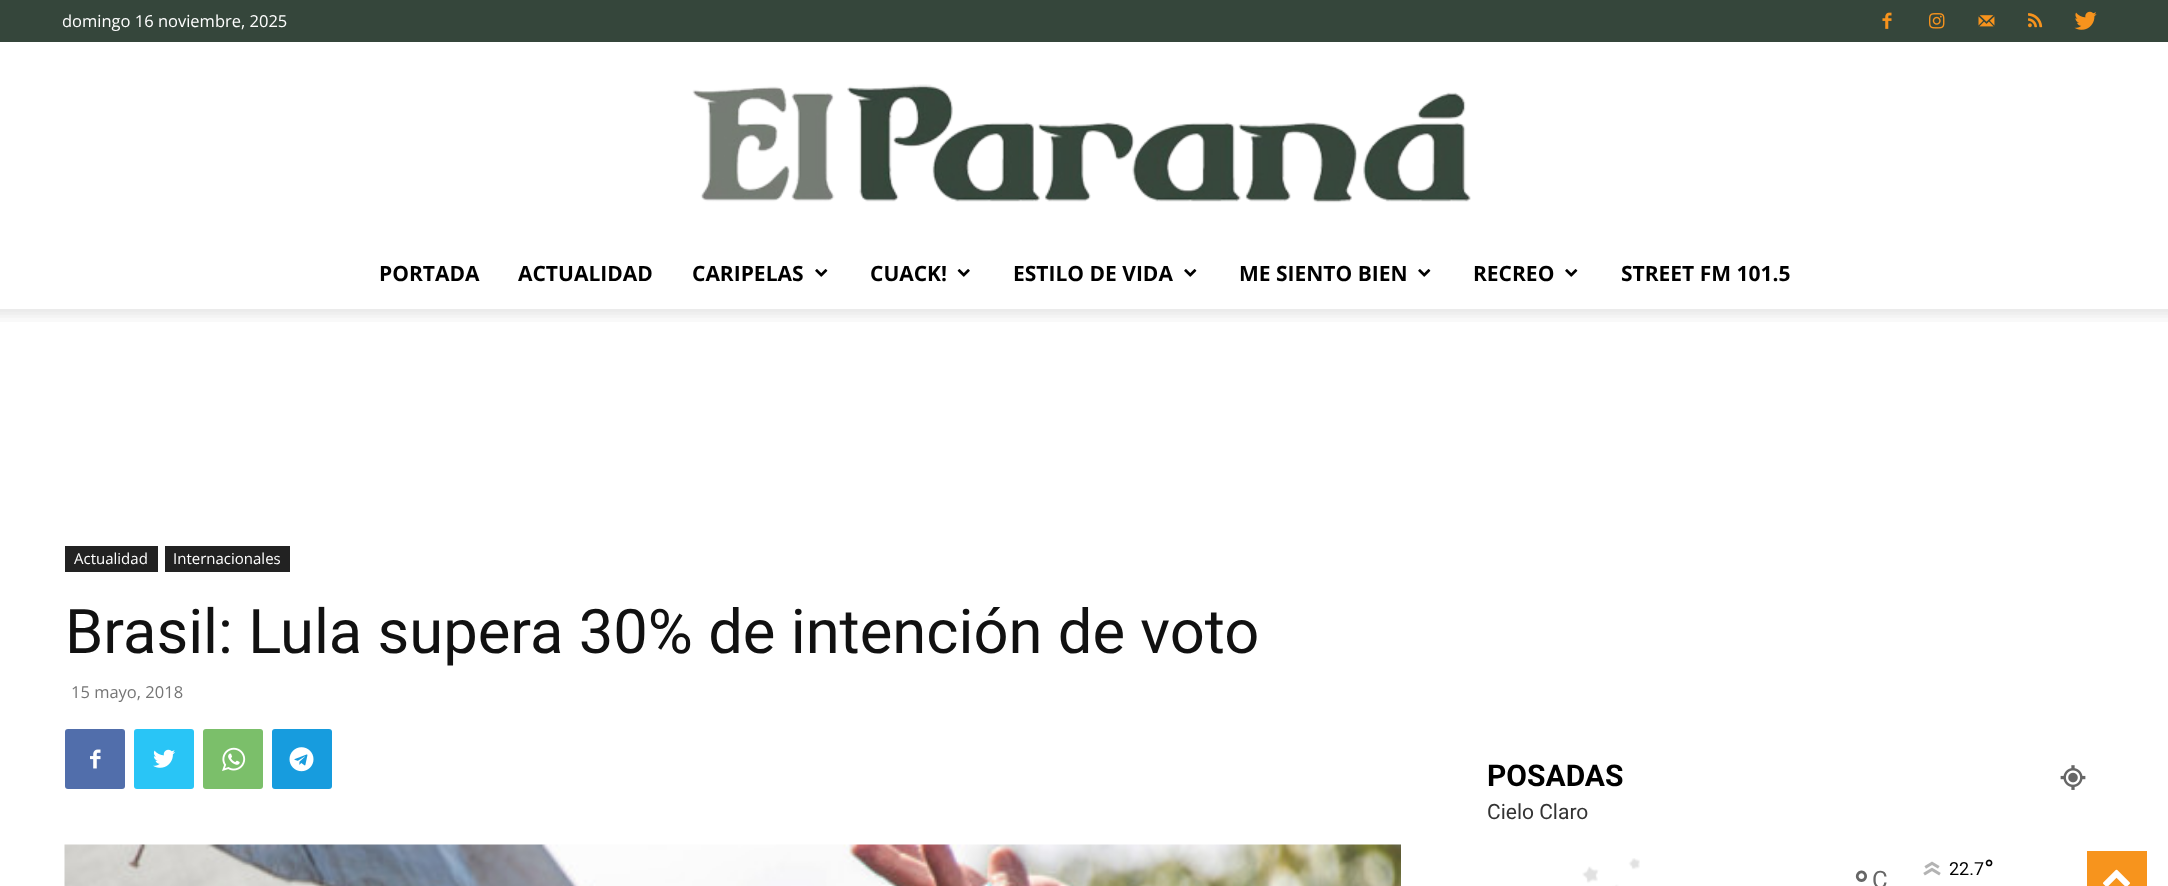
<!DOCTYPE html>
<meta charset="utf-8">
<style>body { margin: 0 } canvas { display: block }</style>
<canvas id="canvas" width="2168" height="886"></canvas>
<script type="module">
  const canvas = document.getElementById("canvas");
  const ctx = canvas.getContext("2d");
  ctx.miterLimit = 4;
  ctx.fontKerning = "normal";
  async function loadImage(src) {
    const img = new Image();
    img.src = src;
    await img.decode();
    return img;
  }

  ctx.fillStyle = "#ffffff";
  ctx.fillRect(0, 0, 2168, 886);
  ctx.fillStyle = "#35463b";
  ctx.fillRect(0, 0, 2168, 42);
  ctx.font = "16.5px Open Sans";
  ctx.fillStyle = "#ffffff";
  ctx.fillText("domingo 16 noviembre, 2025", 62, 27);
  ctx.drawImage(await loadImage("img1.png"), 1882, 12, 10, 17);
  ctx.drawImage(await loadImage("img2.png"), 1929, 13, 16, 16);
  ctx.drawImage(await loadImage("img3.png"), 1978, 15, 17, 12);
  ctx.drawImage(await loadImage("img4.png"), 2028, 13, 15, 15);
  ctx.drawImage(await loadImage("img5.png"), 2074, 11, 23, 19);
  ctx.drawImage(await loadImage("img6.png"), 692, 84, 779, 119);
  ctx.font = "bold 21px Open Sans";
  ctx.fillStyle = "#000000";
  ctx.fillText("PORTADA", 379, 281);
  ctx.fillText("ACTUALIDAD", 518, 281);
  ctx.fillText("CARIPELAS", 692, 281);
  ctx.drawImage(await loadImage("img7.png"), 815, 269, 13, 8);
  ctx.fillText("CUACK!", 870, 281);
  ctx.drawImage(await loadImage("img8.png"), 957, 269, 13, 8);
  ctx.fillText("ESTILO DE VIDA", 1013, 281);
  ctx.drawImage(await loadImage("img7.png"), 1184, 269, 13, 8);
  ctx.fillText("ME SIENTO BIEN", 1239, 281);
  ctx.drawImage(await loadImage("img7.png"), 1418, 269, 13, 8);
  ctx.fillText("RECREO", 1473, 281);
  ctx.drawImage(await loadImage("img7.png"), 1565, 269, 13, 8);
  ctx.fillText("STREET FM 101.5", 1621, 281);
  ctx.drawImage(await loadImage("img9.png"), 0, 309, 2168, 13);
  ctx.fillStyle = "#222222";
  ctx.fillRect(65, 546, 93, 26);
  ctx.font = "15px Open Sans";
  ctx.fillStyle = "#ffffff";
  ctx.fillText("Actualidad", 74, 564);
  ctx.fillStyle = "#222222";
  ctx.fillRect(165, 546, 125, 26);
  ctx.fillStyle = "#ffffff";
  ctx.fillText("Internacionales", 173, 564);
  ctx.font = "61.5px Roboto";
  ctx.fillStyle = "#111111";
  ctx.fillText("Brasil: Lula supera 30% de intención de voto", 65, 653);
  ctx.font = "16.5px Open Sans";
  ctx.fillStyle = "#767676";
  ctx.fillText("15 mayo, 2018", 71, 698);
  ctx.fillStyle = "#516eab";
  ctx.beginPath();
  ctx.roundRect(65, 729, 60, 60, 3);
  ctx.fill();
  ctx.drawImage(await loadImage("img10.png"), 90, 749, 11, 20);
  ctx.fillStyle = "#29c5f6";
  ctx.beginPath();
  ctx.roundRect(134, 729, 60, 60, 3);
  ctx.fill();
  ctx.drawImage(await loadImage("img11.png"), 153, 749, 22, 19);
  ctx.fillStyle = "#7bbf6a";
  ctx.beginPath();
  ctx.roundRect(203, 729, 60, 60, 3);
  ctx.fill();
  ctx.drawImage(await loadImage("img12.png"), 222, 747, 24, 24);
  ctx.fillStyle = "#179cde";
  ctx.beginPath();
  ctx.roundRect(272, 729, 60, 60, 3);
  ctx.fill();
  ctx.drawImage(await loadImage("img13.png"), 289, 747, 25, 25);
  ctx.drawImage(await loadImage("img14.png"), 64, 844, 1337, 42);
  ctx.font = "bold 30px Roboto";
  ctx.fillStyle = "#000000";
  ctx.fillText("POSADAS", 1487, 786);
  ctx.drawImage(await loadImage("img15.png"), 2060, 765, 26, 25);
  ctx.font = "21px Roboto";
  ctx.fillStyle = "#333333";
  ctx.fillText("Cielo Claro", 1487, 819);
  ctx.drawImage(await loadImage("img16.png"), 1582, 858, 58, 28);
  ctx.drawImage(await loadImage("img17.png"), 1923, 861, 18, 15);
  ctx.font = "18px Roboto";
  ctx.fillStyle = "#000000";
  ctx.fillText("22.7", 1949, 875);
  ctx.font = "27px Roboto";
  ctx.fillText("°", 1984, 879);
  ctx.font = "45px Roboto";
  ctx.fillStyle = "#666666";
  ctx.fillText("°", 1853, 903);
  ctx.font = "24px Roboto";
  ctx.fillText("C", 1872, 888);
  ctx.fillStyle = "#f7941d";
  ctx.fillRect(2087, 851, 60, 35);
  ctx.drawImage(await loadImage("img18.png"), 2103, 869, 27, 17);
</script>
